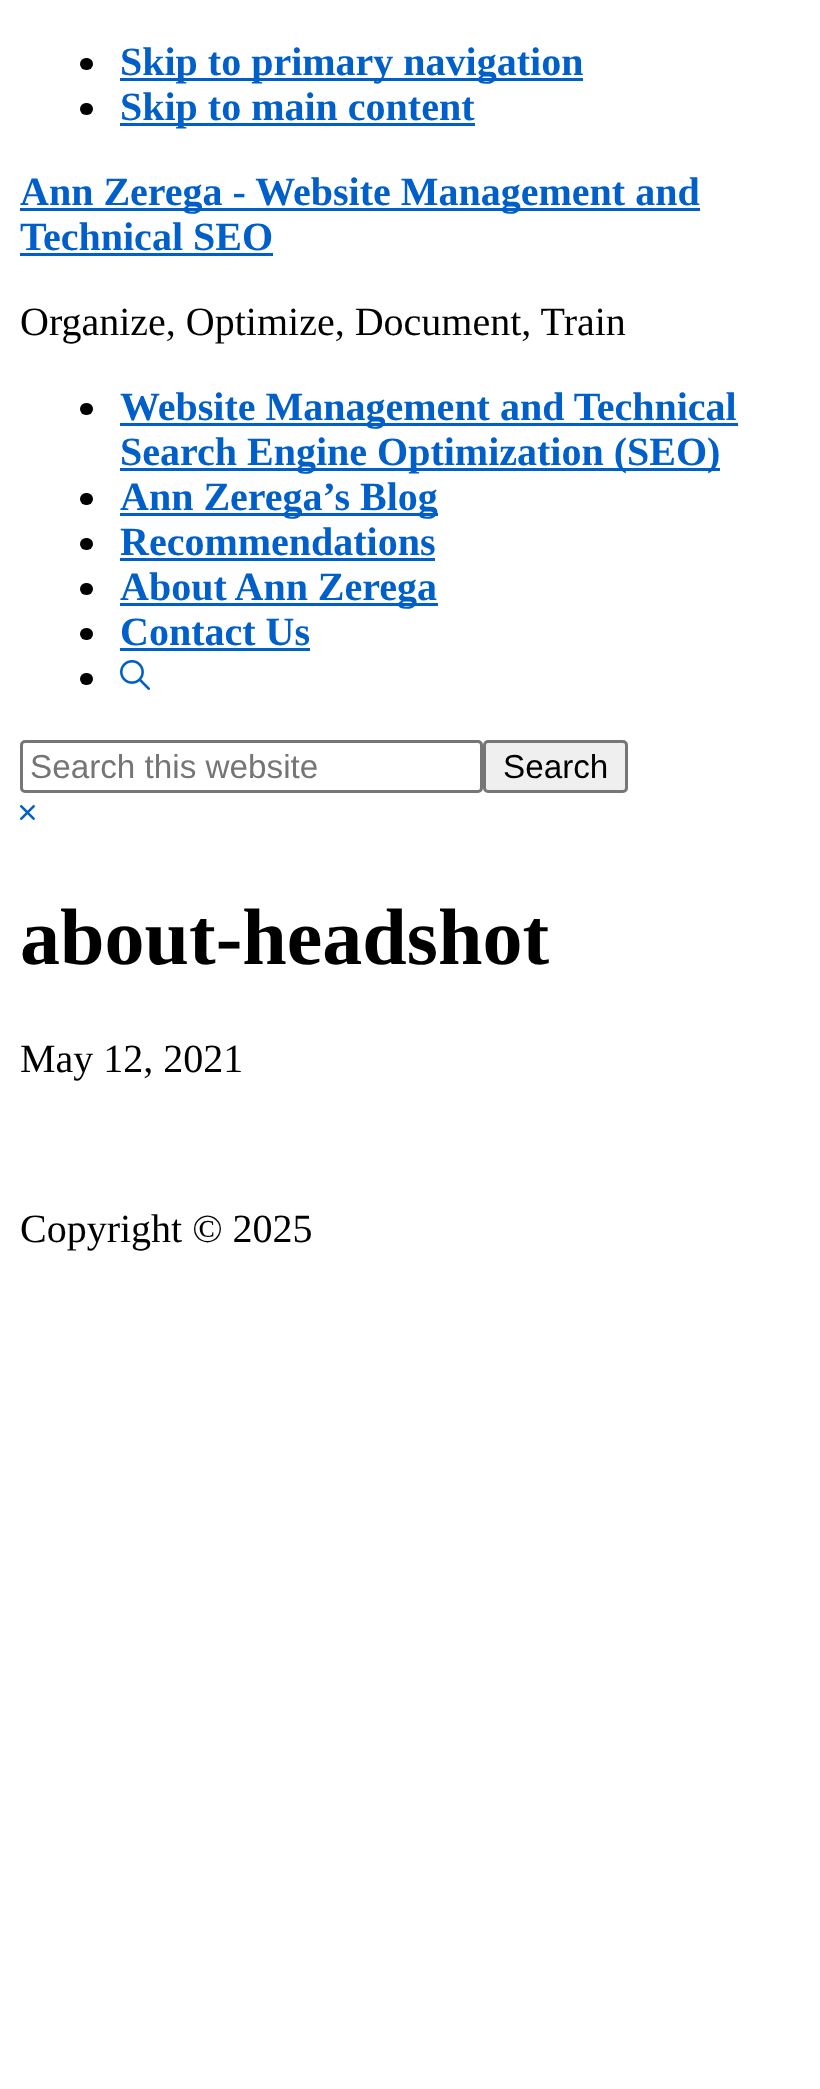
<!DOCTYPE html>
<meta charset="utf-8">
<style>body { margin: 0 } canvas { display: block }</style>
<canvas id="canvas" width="820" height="2089"></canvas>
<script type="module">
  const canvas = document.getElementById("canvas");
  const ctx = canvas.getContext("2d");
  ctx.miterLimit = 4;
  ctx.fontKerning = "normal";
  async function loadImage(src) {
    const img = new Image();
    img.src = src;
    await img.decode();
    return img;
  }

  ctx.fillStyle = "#ffffff";
  ctx.fillRect(0, 0, 820, 2089);
  ctx.fillStyle = "#000000";
  ctx.beginPath();
  ctx.roundRect(80, 58, 13, 12, 6);
  ctx.fill();
  ctx.fillStyle = "#005fc9";
  ctx.fillRect(120, 78, 463, 3);
  ctx.font = "bold 40px Liberation Serif";
  ctx.fillText("Skip to primary navigation", 120, 75);
  ctx.fillStyle = "#000000";
  ctx.beginPath();
  ctx.roundRect(80, 103, 13, 12, 6);
  ctx.fill();
  ctx.fillStyle = "#005fc9";
  ctx.fillRect(120, 123, 355, 3);
  ctx.fillText("Skip to main content", 120, 120);
  ctx.fillRect(20, 208, 680, 3);
  ctx.fillText("Ann Zerega - Website Management and", 20, 205);
  ctx.fillText("Technical SEO", 20, 250);
  ctx.fillRect(20, 253, 253, 3);
  ctx.font = "40px Liberation Serif";
  ctx.fillStyle = "#000000";
  ctx.fillText("Organize, Optimize, Document, Train", 20, 335);
  ctx.beginPath();
  ctx.roundRect(80, 403, 13, 12, 6);
  ctx.fill();
  ctx.fillStyle = "#005fc9";
  ctx.fillRect(120, 423, 618, 3);
  ctx.font = "bold 40px Liberation Serif";
  ctx.fillText("Website Management and Technical", 120, 420);
  ctx.fillRect(120, 468, 600, 3);
  ctx.fillText("Search Engine Optimization (SEO)", 120, 465);
  ctx.fillStyle = "#000000";
  ctx.beginPath();
  ctx.roundRect(80, 493, 13, 12, 6);
  ctx.fill();
  ctx.fillStyle = "#005fc9";
  ctx.fillRect(120, 513, 318, 3);
  ctx.fillText("Ann Zerega’s Blog", 120, 510);
  ctx.fillStyle = "#000000";
  ctx.beginPath();
  ctx.roundRect(80, 538, 13, 12, 6);
  ctx.fill();
  ctx.fillStyle = "#005fc9";
  ctx.fillText("Recommendations", 120, 555);
  ctx.fillRect(120, 558, 315, 3);
  ctx.fillStyle = "#000000";
  ctx.beginPath();
  ctx.roundRect(80, 583, 13, 12, 6);
  ctx.fill();
  ctx.fillStyle = "#005fc9";
  ctx.fillRect(120, 603, 318, 3);
  ctx.fillText("About Ann Zerega", 120, 600);
  ctx.fillStyle = "#000000";
  ctx.beginPath();
  ctx.roundRect(80, 628, 13, 12, 6);
  ctx.fill();
  ctx.fillStyle = "#005fc9";
  ctx.fillText("Contact Us", 120, 645);
  ctx.fillRect(120, 648, 190, 3);
  ctx.fillStyle = "#000000";
  ctx.beginPath();
  ctx.roundRect(80, 673, 13, 12, 6);
  ctx.fill();
  ctx.drawImage(await loadImage("img1.png"), 120, 660, 31, 30);
  ctx.beginPath();
  ctx.roundRect(21.5, 741.5, 460, 50, 3.5);
  ctx.strokeStyle = "#767676";
  ctx.lineWidth = 3;
  ctx.stroke();
  ctx.font = "33.25px Liberation Sans";
  ctx.fillStyle = "#757575";
  ctx.fillText("Search this website", 30, 778);
  ctx.fillStyle = "#efefef";
  ctx.beginPath();
  ctx.roundRect(484.5, 741.5, 142, 50, 3.5);
  ctx.fill();
  ctx.stroke();
  ctx.fillStyle = "#000000";
  ctx.fillText("Search", 503, 778);
  ctx.drawImage(await loadImage("img2.png"), 20, 805, 15, 15);
  ctx.font = "bold 80px Liberation Serif";
  ctx.fillText("about-headshot", 20, 964);
  ctx.font = "40px Liberation Serif";
  ctx.fillText("May 12, 2021", 20, 1072);
  ctx.fillText("Copyright © 2025", 20, 1242);
</script>
